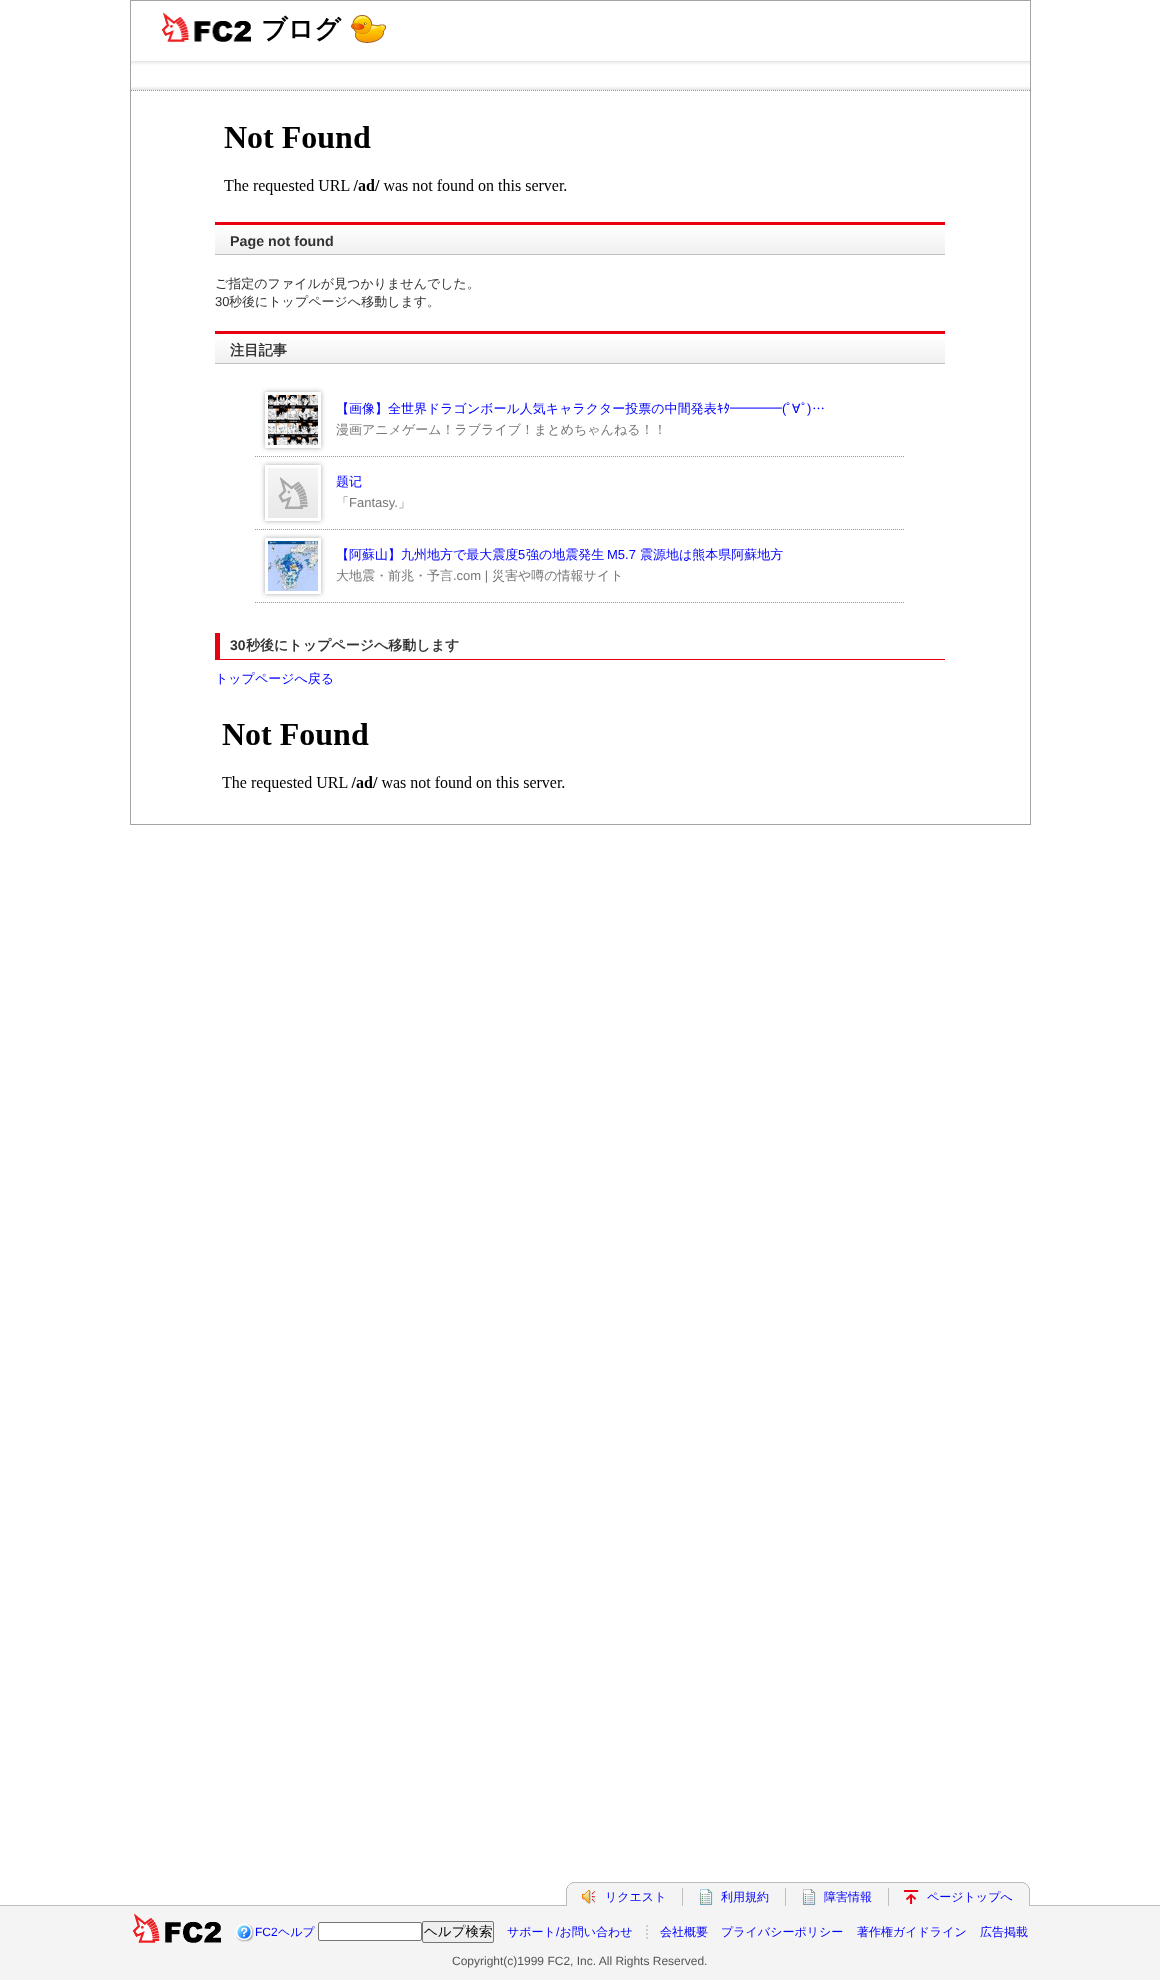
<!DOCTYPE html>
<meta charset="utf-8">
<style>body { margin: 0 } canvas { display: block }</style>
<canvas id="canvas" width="1160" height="1981"></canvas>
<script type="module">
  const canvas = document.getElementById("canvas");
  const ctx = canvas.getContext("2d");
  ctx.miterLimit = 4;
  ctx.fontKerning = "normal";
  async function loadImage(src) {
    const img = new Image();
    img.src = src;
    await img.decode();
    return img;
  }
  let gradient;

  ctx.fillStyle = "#ffffff";
  ctx.fillRect(0, 0, 1160, 1981);
  ctx.strokeStyle = "#a3a3a3";
  ctx.strokeRect(130.5, 0.5, 900, 824);
  ctx.drawImage(await loadImage("img1.png"), 162, 12, 89, 30);
  ctx.drawImage(await loadImage("img2.png"), 351, 15, 35, 28);
  ctx.font = "bold 26px WenQuanYi Zen Hei";
  ctx.fillStyle = "#000000";
  ctx.fillText("ブログ", 261, 38);
  ctx.drawImage(await loadImage("img3.png"), 131, 61, 899, 30);
  ctx.drawImage(await loadImage("img4.png"), 224, 126, 343, 69);
  gradient = ctx.createLinearGradient(215, 225, 215, 254);
  gradient.addColorStop(0, "#ffffff");
  gradient.addColorStop(1, "#f0f0f0");
  ctx.fillStyle = gradient;
  ctx.fillRect(215, 230, 730, 24);
  ctx.fillStyle = "#e80011";
  ctx.fillRect(215, 222, 730, 3);
  ctx.fillStyle = "#bfbfbf";
  ctx.fillRect(215, 254, 730, 1);
  ctx.font = "bold 14.25px Liberation Sans";
  ctx.fillStyle = "#333333";
  ctx.fillText("Page not found", 230, 246);
  ctx.font = "500 13px WenQuanYi Zen Hei";
  ctx.fillText("ご指定のファイルが見つかりませんでした。", 215, 288);
  ctx.font = "13px Liberation Sans";
  ctx.fillText("30", 215, 306);
  ctx.font = "500 13px WenQuanYi Zen Hei";
  ctx.fillText("秒後にトップページへ移動します。", 229, 306);
  gradient = ctx.createLinearGradient(215, 334, 215, 363);
  gradient.addColorStop(0, "#ffffff");
  gradient.addColorStop(1, "#f0f0f0");
  ctx.fillStyle = gradient;
  ctx.fillRect(215, 339, 730, 24);
  ctx.fillStyle = "#e80011";
  ctx.fillRect(215, 331, 730, 3);
  ctx.fillStyle = "#bfbfbf";
  ctx.fillRect(215, 363, 730, 1);
  ctx.font = "bold 14.25px WenQuanYi Zen Hei";
  ctx.fillStyle = "#333333";
  ctx.fillText("注目記事", 230, 355);
  ctx.beginPath();
  ctx.moveTo(255, 456.5);
  ctx.lineTo(905, 456.5);
  ctx.strokeStyle = "#999999";
  ctx.setLineDash([1, 1]);
  ctx.stroke();
  ctx.save();
  ctx.beginPath();
  ctx.moveTo(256, 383);
  ctx.lineTo(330, 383);
  ctx.lineTo(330, 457);
  ctx.lineTo(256, 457);
  ctx.closePath();
  ctx.moveTo(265, 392);
  ctx.lineTo(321, 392);
  ctx.lineTo(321, 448);
  ctx.lineTo(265, 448);
  ctx.closePath();
  ctx.clip("evenodd");
  ctx.fillStyle = "#aaaaaa";
  ctx.filter = "blur(2.5px)";
  ctx.beginPath();
  ctx.rect(265, 392, 56, 56);
  ctx.fill();
  ctx.filter = "none";
  ctx.restore();
  ctx.drawImage(await loadImage("img5.png"), 268, 395, 50, 50);
  ctx.font = "500 13px WenQuanYi Zen Hei";
  ctx.fillStyle = "#0000ff";
  ctx.fillText("【画像】全世界ドラゴンボール人気キャラクター投票の中間発表", 336, 413);
  ctx.font = "13px IPAPGothic";
  ctx.fillText("ｷﾀ", 717, 413);
  ctx.font = "500 13px WenQuanYi Zen Hei";
  ctx.fillText("━━━━", 730, 413);
  ctx.font = "13px Liberation Sans";
  ctx.fillText("(", 782, 413);
  ctx.font = "13px IPAPGothic";
  ctx.fillText("ﾟ", 786, 413);
  ctx.font = "500 13px WenQuanYi Zen Hei";
  ctx.fillText("∀", 792, 413);
  ctx.font = "13px IPAPGothic";
  ctx.fillText("ﾟ", 801, 413);
  ctx.font = "13px Liberation Sans";
  ctx.fillText(")", 807, 413);
  ctx.font = "500 13px WenQuanYi Zen Hei";
  ctx.fillText("…", 812, 413);
  ctx.fillStyle = "#777777";
  ctx.fillText("漫画アニメゲーム！ラブライブ！まとめちゃんねる！！", 336, 434);
  ctx.beginPath();
  ctx.moveTo(255, 529.5);
  ctx.lineTo(905, 529.5);
  ctx.stroke();
  ctx.save();
  ctx.beginPath();
  ctx.moveTo(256, 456);
  ctx.lineTo(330, 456);
  ctx.lineTo(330, 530);
  ctx.lineTo(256, 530);
  ctx.closePath();
  ctx.moveTo(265, 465);
  ctx.lineTo(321, 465);
  ctx.lineTo(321, 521);
  ctx.lineTo(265, 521);
  ctx.closePath();
  ctx.clip("evenodd");
  ctx.fillStyle = "#aaaaaa";
  ctx.filter = "blur(2.5px)";
  ctx.beginPath();
  ctx.rect(265, 465, 56, 56);
  ctx.fill();
  ctx.filter = "none";
  ctx.restore();
  ctx.drawImage(await loadImage("img6.png"), 268, 468, 50, 50);
  ctx.fillStyle = "#0000ff";
  ctx.fillText("题记", 336, 486);
  ctx.fillStyle = "#777777";
  ctx.fillText("「", 336, 507);
  ctx.font = "13px Liberation Sans";
  ctx.fillText("Fantasy.", 349, 507);
  ctx.font = "500 13px WenQuanYi Zen Hei";
  ctx.fillText("」", 398, 507);
  ctx.beginPath();
  ctx.moveTo(255, 602.5);
  ctx.lineTo(905, 602.5);
  ctx.stroke();
  ctx.save();
  ctx.beginPath();
  ctx.moveTo(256, 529);
  ctx.lineTo(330, 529);
  ctx.lineTo(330, 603);
  ctx.lineTo(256, 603);
  ctx.closePath();
  ctx.moveTo(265, 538);
  ctx.lineTo(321, 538);
  ctx.lineTo(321, 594);
  ctx.lineTo(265, 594);
  ctx.closePath();
  ctx.clip("evenodd");
  ctx.fillStyle = "#aaaaaa";
  ctx.filter = "blur(2.5px)";
  ctx.beginPath();
  ctx.rect(265, 538, 56, 56);
  ctx.fill();
  ctx.filter = "none";
  ctx.restore();
  ctx.drawImage(await loadImage("img7.png"), 268, 541, 50, 50);
  ctx.fillStyle = "#0000ff";
  ctx.fillText("【阿蘇山】九州地方で最大震度", 336, 559);
  ctx.font = "13px Liberation Sans";
  ctx.fillText("5", 518, 559);
  ctx.font = "500 13px WenQuanYi Zen Hei";
  ctx.fillText("強の地震発生", 526, 559);
  ctx.font = "13px Liberation Sans";
  ctx.fillText("M5.7", 607, 559);
  ctx.font = "500 13px WenQuanYi Zen Hei";
  ctx.fillText("震源地は熊本県阿蘇地方", 640, 559);
  ctx.fillStyle = "#777777";
  ctx.fillText("大地震・前兆・予言", 336, 580);
  ctx.font = "13px Liberation Sans";
  ctx.fillText(".com |", 453, 580);
  ctx.font = "500 13px WenQuanYi Zen Hei";
  ctx.fillText("災害や噂の情報サイト", 492, 580);
  ctx.fillStyle = "#e80011";
  ctx.fillRect(215, 659, 730, 1);
  ctx.fillRect(215, 633, 5, 27);
  ctx.font = "bold 14px Liberation Sans";
  ctx.fillStyle = "#333333";
  ctx.fillText("30", 230, 650);
  ctx.font = "bold 14px WenQuanYi Zen Hei";
  ctx.fillText("秒後にトップページへ移動します", 246, 650);
  ctx.font = "500 13px WenQuanYi Zen Hei";
  ctx.fillStyle = "#0000ff";
  ctx.fillText("トップページへ戻る", 215, 683);
  ctx.drawImage(await loadImage("img4.png"), 222, 723, 343, 69);
  ctx.fillStyle = "#bcbcbc";
  ctx.fillRect(572, 1882, 452, 1);
  ctx.fillStyle = "#f4f4f4";
  ctx.fillRect(570, 1883, 456, 1);
  ctx.fillStyle = "#bcbcbc";
  ctx.fillRect(1024, 1883, 2, 1);
  ctx.fillRect(570, 1883, 2, 1);
  ctx.fillStyle = "#f4f4f4";
  ctx.fillRect(569, 1884, 458, 1);
  ctx.fillStyle = "#bcbcbc";
  ctx.fillRect(1026, 1884, 1, 1);
  ctx.fillRect(569, 1884, 1, 1);
  ctx.fillStyle = "#f4f4f4";
  ctx.fillRect(568, 1885, 460, 1);
  ctx.fillStyle = "#bcbcbc";
  ctx.fillRect(1027, 1885, 1, 1);
  ctx.fillRect(568, 1885, 1, 1);
  ctx.fillRect(0, 1905, 1160, 1);
  ctx.fillStyle = "#f4f4f4";
  ctx.fillRect(567, 1886, 462, 20);
  ctx.fillStyle = "#bcbcbc";
  ctx.fillRect(1028, 1886, 1, 2);
  ctx.fillRect(567, 1886, 1, 2);
  ctx.fillRect(1029, 1888, 1, 18);
  ctx.fillRect(566, 1888, 1, 18);
  ctx.drawImage(await loadImage("img8.png"), 581, 1890, 15, 14);
  ctx.fillStyle = "#bfbfbf";
  ctx.fillRect(682, 1888, 1, 18);
  ctx.font = "500 12px WenQuanYi Zen Hei";
  ctx.fillStyle = "#0000ff";
  ctx.fillText("リクエスト", 605, 1901);
  ctx.drawImage(await loadImage("img9.png"), 699, 1889, 14, 17);
  ctx.fillStyle = "#bfbfbf";
  ctx.fillRect(785, 1888, 1, 18);
  ctx.fillStyle = "#0000ff";
  ctx.fillText("利用規約", 721, 1901);
  ctx.drawImage(await loadImage("img9.png"), 802, 1889, 14, 17);
  ctx.fillStyle = "#bfbfbf";
  ctx.fillRect(888, 1888, 1, 18);
  ctx.fillStyle = "#0000ff";
  ctx.fillText("障害情報", 824, 1901);
  ctx.drawImage(await loadImage("img10.png"), 904, 1890, 15, 14);
  ctx.fillText("ページトップへ", 927, 1901);
  ctx.fillStyle = "#f4f4f4";
  ctx.fillRect(0, 1906, 1160, 74);
  ctx.drawImage(await loadImage("img11.png"), 133, 1913, 88, 30);
  ctx.drawImage(await loadImage("img12.png"), 235, 1923, 19, 19);
  ctx.font = "12px Liberation Sans";
  ctx.fillStyle = "#0000ff";
  ctx.fillText("FC2", 255, 1936);
  ctx.font = "500 12px WenQuanYi Zen Hei";
  ctx.fillText("ヘルプ", 278, 1936);
  ctx.fillStyle = "#ffffff";
  ctx.beginPath();
  ctx.roundRect(318.5, 1922.5, 103, 18, 1.5);
  ctx.fill();
  ctx.strokeStyle = "#767676";
  ctx.setLineDash([]);
  ctx.stroke();
  ctx.fillStyle = "#efefef";
  ctx.beginPath();
  ctx.roundRect(422.5, 1921.5, 71, 21, 1.5);
  ctx.fill();
  ctx.stroke();
  ctx.font = "500 13.5px WenQuanYi Zen Hei";
  ctx.fillStyle = "#000000";
  ctx.fillText("ヘルプ検索", 424, 1936);
  ctx.font = "500 12px WenQuanYi Zen Hei";
  ctx.fillStyle = "#0000ff";
  ctx.fillText("サポート お問い合わせ", 507, 1936);
  ctx.fillText("会社概要", 660, 1936);
  ctx.beginPath();
  ctx.moveTo(647, 1925);
  ctx.lineTo(647, 1927);
  ctx.moveTo(647, 1929);
  ctx.lineTo(647, 1931);
  ctx.moveTo(647, 1933);
  ctx.lineTo(647, 1935);
  ctx.moveTo(647, 1937);
  ctx.lineTo(647, 1939);
  ctx.strokeStyle = "#cccccc";
  ctx.lineWidth = 2;
  ctx.stroke();
  ctx.fillText("プライバシーポリシー", 721, 1936);
  ctx.fillText("著作権ガイドライン", 857, 1936);
  ctx.fillText("広告掲載", 980, 1936);
  ctx.font = "12px Liberation Sans";
  ctx.fillText("/", 556, 1936);
  ctx.fillStyle = "#555555";
  ctx.fillText("Copyright(c)1999 FC2, Inc. All Rights Reserved.", 452, 1965);
</script>
